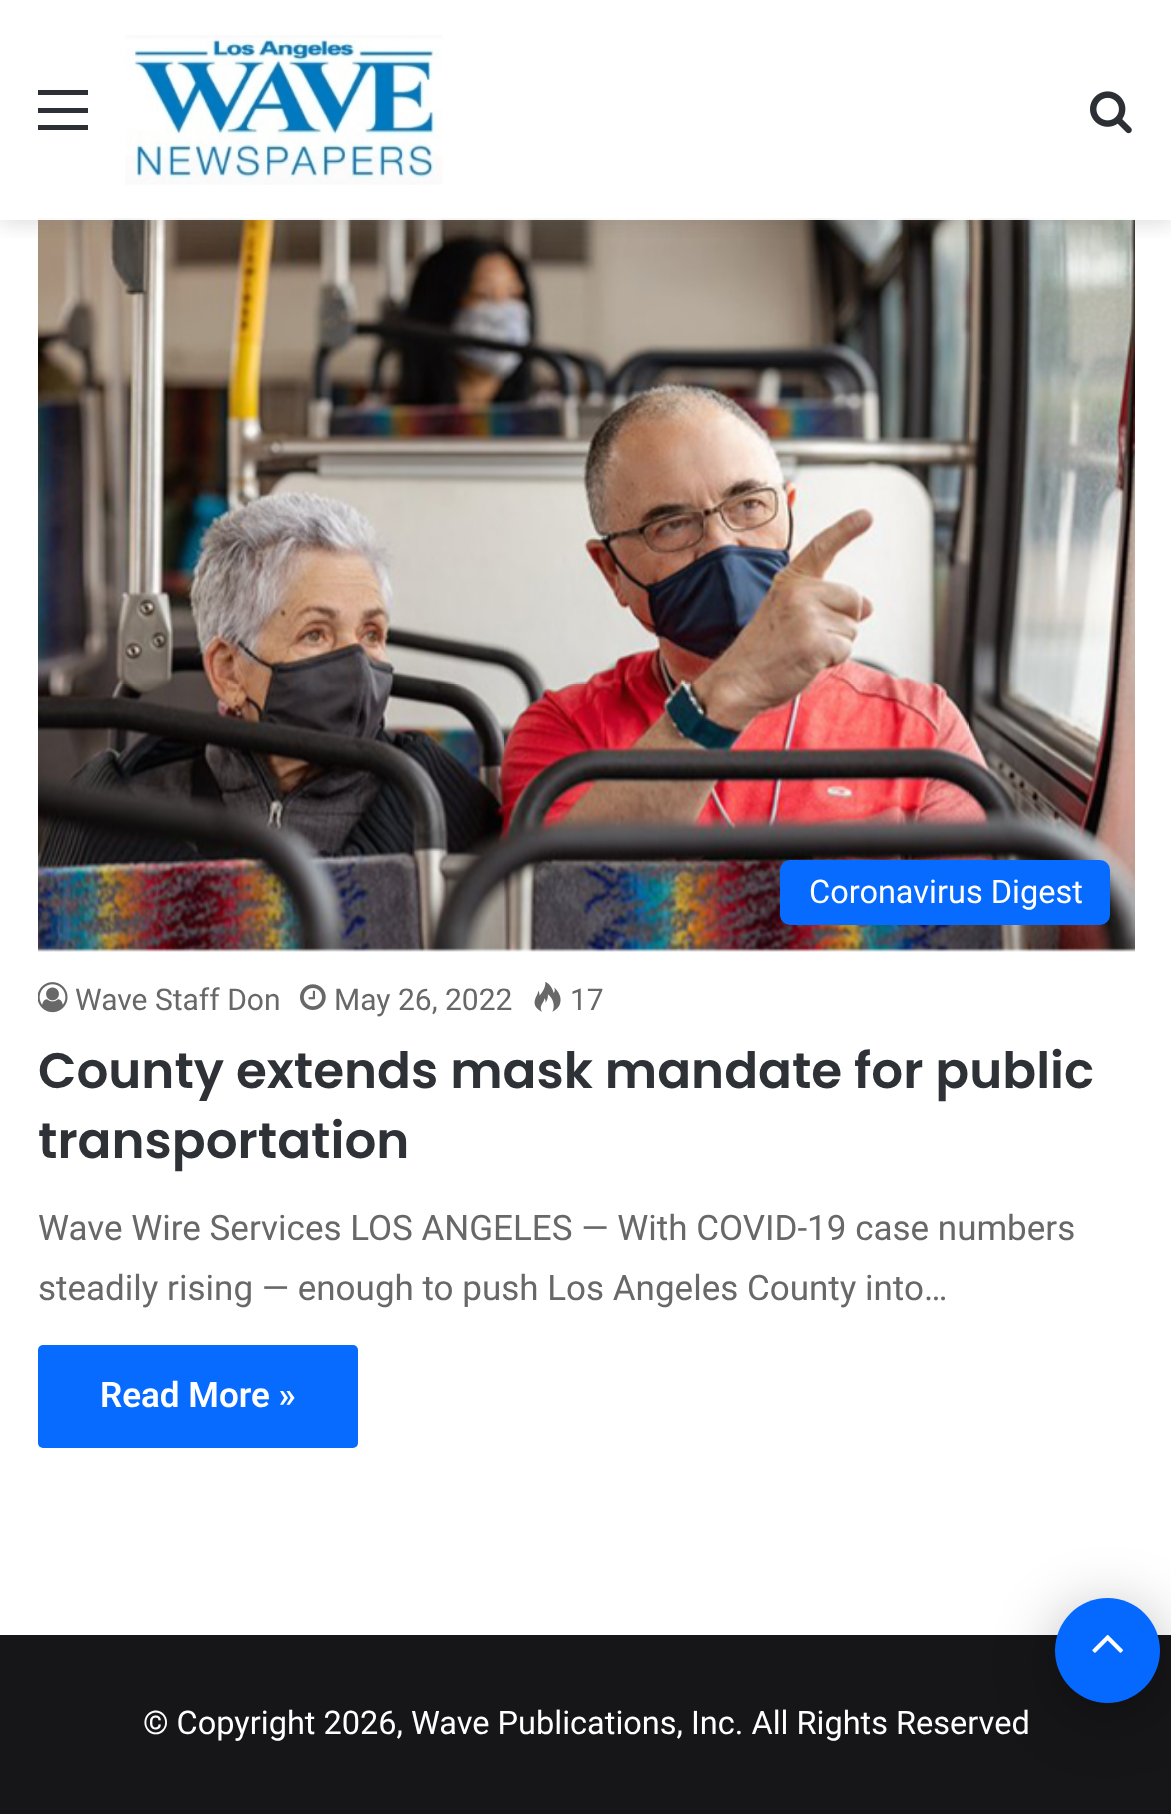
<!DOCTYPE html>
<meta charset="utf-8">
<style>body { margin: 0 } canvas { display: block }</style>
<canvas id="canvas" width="1171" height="1814"></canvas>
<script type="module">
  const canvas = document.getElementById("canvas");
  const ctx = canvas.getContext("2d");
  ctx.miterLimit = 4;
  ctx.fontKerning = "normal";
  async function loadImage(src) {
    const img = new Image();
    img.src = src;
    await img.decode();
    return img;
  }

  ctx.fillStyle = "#ffffff";
  ctx.fillRect(0, 0, 1171, 1814);
  ctx.drawImage(await loadImage("img3.png"), 38, 218, 1097, 734);
  ctx.save();
  ctx.beginPath();
  ctx.rect(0, 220, 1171, 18);
  ctx.clip();
  ctx.fillStyle = "rgba(99, 99, 99, 0.2)";
  ctx.filter = "blur(10px)";
  ctx.beginPath();
  ctx.rect(0, 5, 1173, 220);
  ctx.fill();
  ctx.filter = "none";
  ctx.restore();
  ctx.fillStyle = "rgba(255, 255, 255, 0.95)";
  ctx.fillRect(38, 218, 1097, 2);
  ctx.fillStyle = "#2c2f34";
  ctx.fillRect(38, 108, 50, 5);
  ctx.fillRect(38, 90, 50, 5);
  ctx.fillRect(38, 125, 50, 5);
  ctx.drawImage(await loadImage("img1.png"), 125, 35, 318, 150);
  ctx.drawImage(await loadImage("img2.png"), 1090, 91, 42, 43);
  ctx.fillStyle = "#086bff";
  ctx.beginPath();
  ctx.roundRect(780, 860, 330, 65, 10);
  ctx.fill();
  ctx.font = "32.5px Roboto";
  ctx.fillStyle = "#ffffff";
  ctx.fillText("Coronavirus Digest", 809, 903);
  ctx.drawImage(await loadImage("img4.png"), 38, 982, 30, 31);
  ctx.font = "30px Roboto";
  ctx.fillStyle = "#686868";
  ctx.fillText("Wave Staff Don", 75, 1010);
  ctx.drawImage(await loadImage("img5.png"), 300, 984, 26, 26);
  ctx.fillText("May 26, 2022", 334, 1010);
  ctx.drawImage(await loadImage("img6.png"), 534, 982, 27, 30);
  ctx.fillText("17", 570, 1010);
  ctx.font = "600 50px Poppins";
  ctx.fillStyle = "#2e3136";
  ctx.fillText("County extends mask mandate for public", 38, 1088);
  ctx.fillText("transportation", 38, 1158);
  ctx.font = "35px Roboto";
  ctx.fillStyle = "#686868";
  ctx.fillText("Wave Wire Services LOS ANGELES — With COVID-19 case numbers", 38, 1240);
  ctx.fillText("steadily rising — enough to push Los Angeles County into…", 38, 1300);
  ctx.fillStyle = "#086bff";
  ctx.beginPath();
  ctx.roundRect(38, 1345, 320, 103, 5);
  ctx.fill();
  ctx.font = "600 35px Roboto";
  ctx.fillStyle = "#ffffff";
  ctx.fillText("Read More »", 100, 1407);
  ctx.fillStyle = "#161619";
  ctx.fillRect(0, 1635, 1171, 179);
  ctx.font = "32.5px Roboto";
  ctx.fillStyle = "#ffffff";
  ctx.fillText("© Copyright 2026, Wave Publications, Inc. All Rights Reserved", 143, 1734);
  ctx.fillStyle = "rgba(0, 0, 0, 0.3)";
  ctx.filter = "blur(31px)";
  ctx.beginPath();
  ctx.roundRect(1055, 1610, 105, 105, 52.5);
  ctx.fill();
  ctx.filter = "none";
  ctx.fillStyle = "#0669ff";
  ctx.beginPath();
  ctx.arc(1107.5, 1650.5, 52.5, 0, Math.PI * 2);
  ctx.fill();
  ctx.drawImage(await loadImage("img7.png"), 1092, 1635, 31, 18);
</script>
